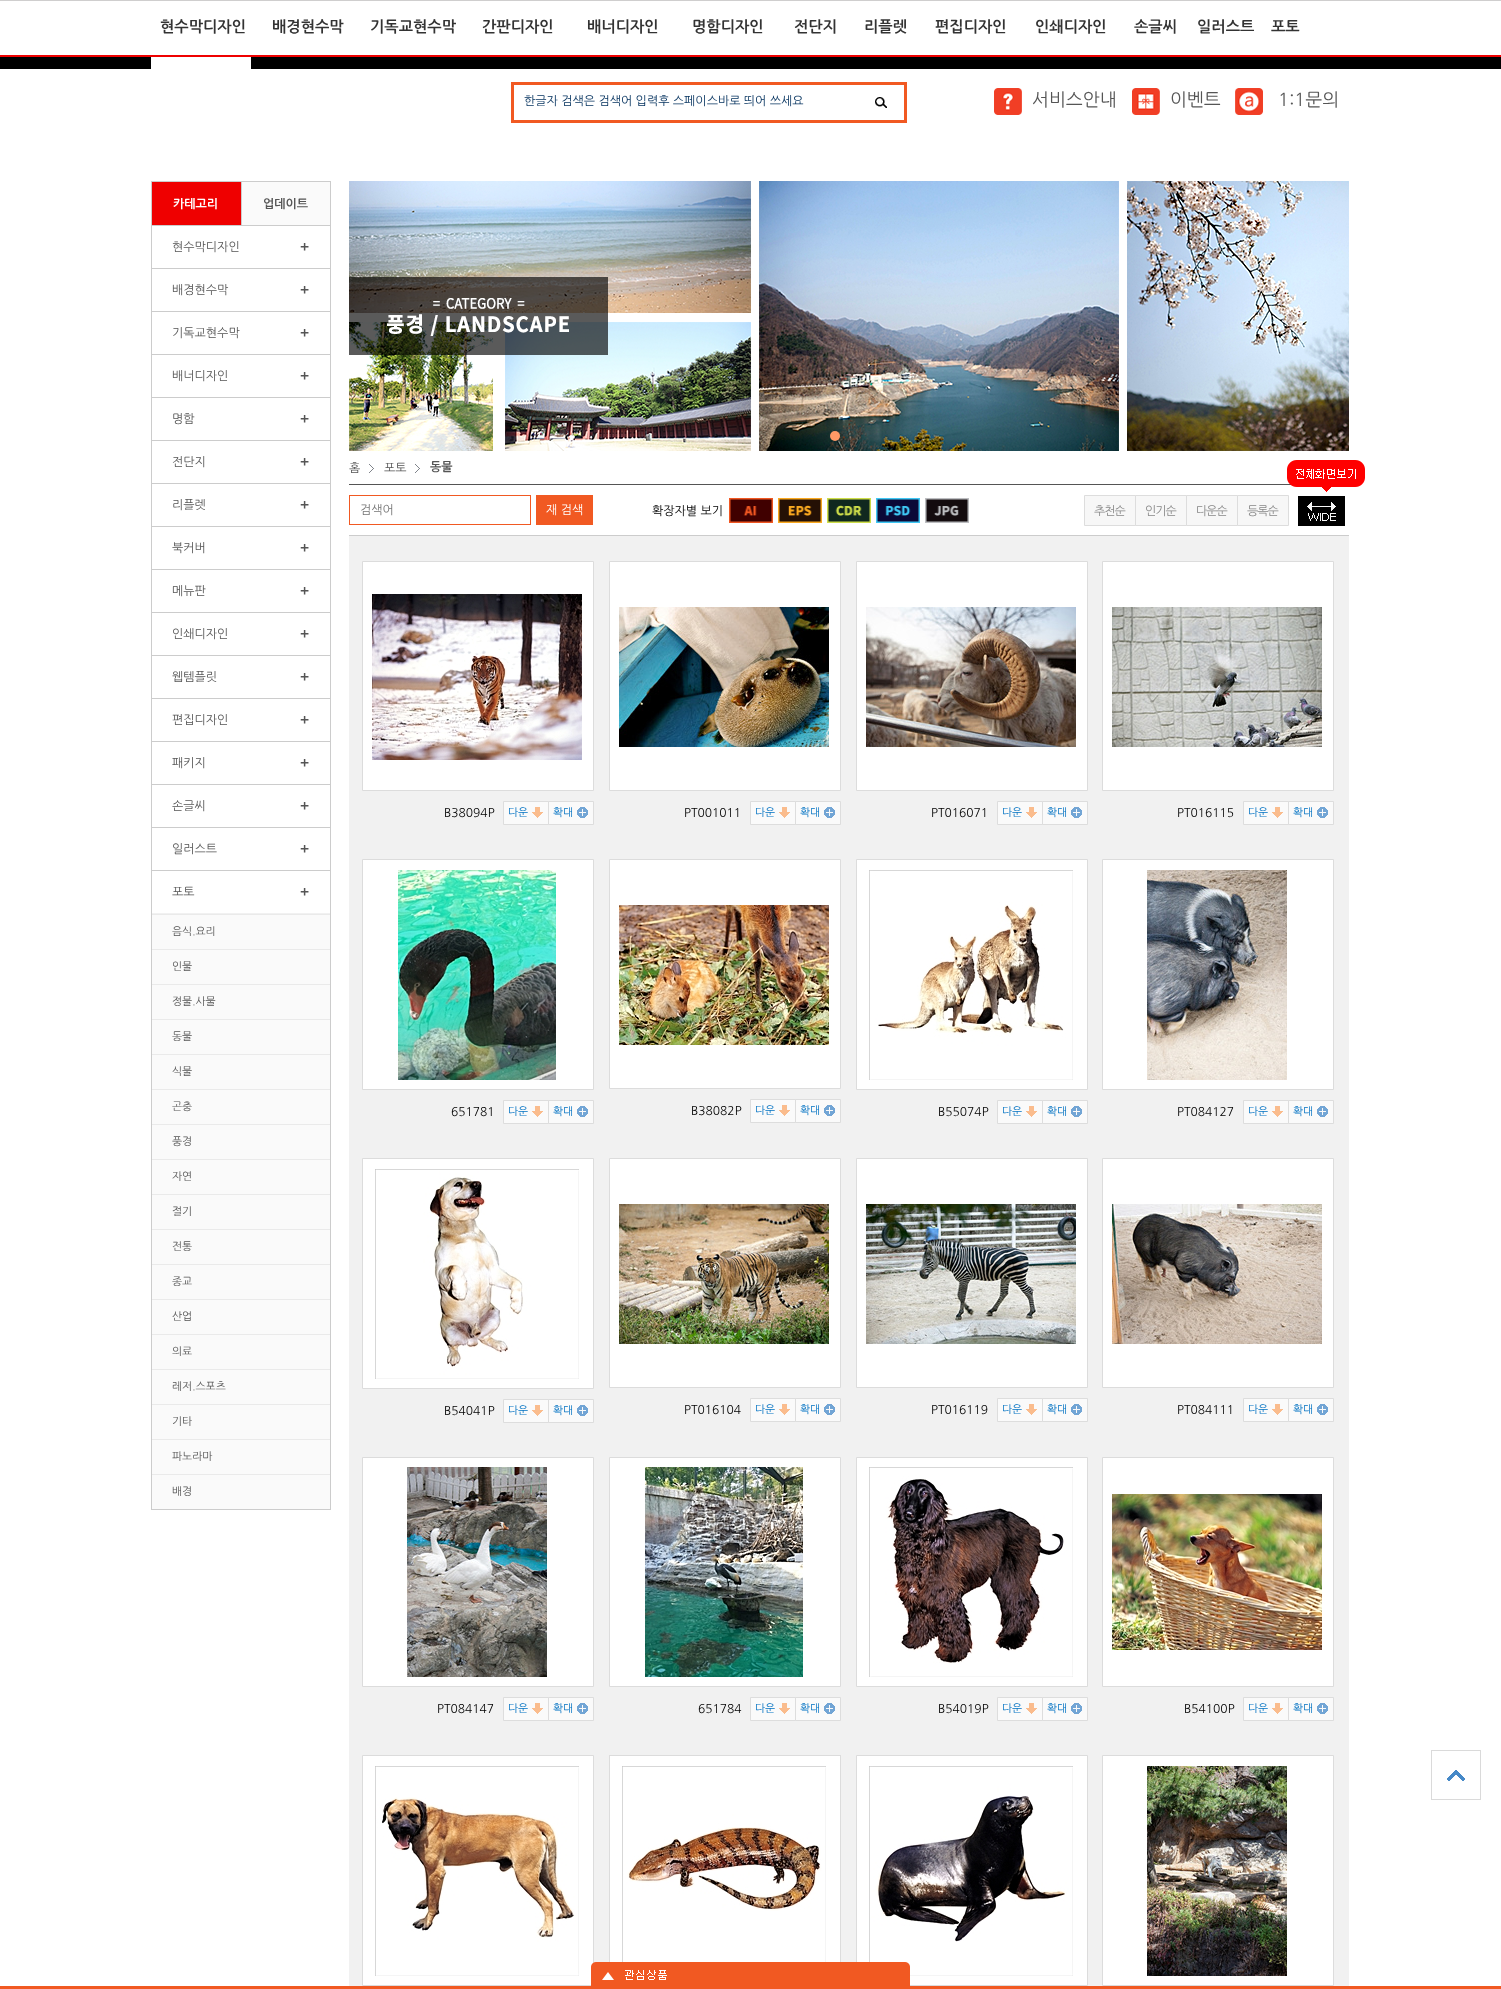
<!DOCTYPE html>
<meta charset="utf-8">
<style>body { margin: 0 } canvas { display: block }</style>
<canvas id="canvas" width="1501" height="1989"></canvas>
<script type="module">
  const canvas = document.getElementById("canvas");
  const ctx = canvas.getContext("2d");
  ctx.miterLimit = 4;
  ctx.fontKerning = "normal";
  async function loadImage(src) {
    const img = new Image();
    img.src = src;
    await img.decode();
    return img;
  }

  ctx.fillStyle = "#ffffff";
  ctx.fillRect(0, 0, 1501, 1989);
  ctx.fillStyle = "#cfcece";
  ctx.fillRect(0, 0, 1501, 1);
  ctx.fillStyle = "#ef0000";
  ctx.fillRect(0, 55, 1501, 2);
  ctx.font = "bold 15.25px NanumGothic";
  ctx.fillStyle = "#333333";
  ctx.fillText("현수막디자인", 160, 32);
  ctx.fillText("배경현수막", 272, 32);
  ctx.fillText("기독교현수막", 370, 32);
  ctx.fillText("간판디자인", 482, 32);
  ctx.fillText("배너디자인", 587, 32);
  ctx.fillText("명함디자인", 692, 32);
  ctx.fillText("전단지", 794, 32);
  ctx.fillText("리플렛", 864, 32);
  ctx.fillText("편집디자인", 935, 32);
  ctx.fillText("인쇄디자인", 1035, 32);
  ctx.fillText("손글씨", 1134, 32);
  ctx.fillText("일러스트", 1197, 32);
  ctx.fillText("포토", 1271, 32);
  ctx.fillStyle = "#000000";
  ctx.fillRect(0, 57, 1501, 12);
  ctx.drawImage(await loadImage("img1.png"), 151, 57, 100, 12);
  ctx.strokeStyle = "#f15922";
  ctx.lineWidth = 3;
  ctx.strokeRect(512.5, 83.5, 393, 38);
  ctx.font = "12px NanumGothic";
  ctx.fillStyle = "#002f5c";
  ctx.fillText("한글자 검색은 검색어 입력후 스페이스바로 띄어 쓰세요", 524, 105);
  ctx.drawImage(await loadImage("img2.png"), 875, 97, 12, 11);
  ctx.drawImage(await loadImage("img3.png"), 994, 88, 28, 27);
  ctx.font = "18px NanumGothic";
  ctx.fillStyle = "#555555";
  ctx.fillText("서비스안내", 1032, 106);
  ctx.drawImage(await loadImage("img4.png"), 1132, 88, 28, 27);
  ctx.fillText("이벤트", 1170, 106);
  ctx.drawImage(await loadImage("img5.png"), 1235, 88, 28, 27);
  ctx.fillText("1:1문의", 1278, 106);
  ctx.fillStyle = "#cccccc";
  ctx.fillRect(151, 181, 1, 45);
  ctx.fillStyle = "#ef0000";
  ctx.fillRect(152, 182, 89, 43);
  ctx.fillStyle = "#cccccc";
  ctx.fillRect(152, 181, 179, 1);
  ctx.fillRect(241, 181, 1, 45);
  ctx.fillRect(152, 225, 90, 1);
  ctx.font = "bold 12px NanumGothic";
  ctx.fillStyle = "#ffffff";
  ctx.fillText("카테고리", 173, 208);
  ctx.fillStyle = "#fafafa";
  ctx.fillRect(242, 182, 88, 43);
  ctx.fillStyle = "#cccccc";
  ctx.fillRect(330, 181, 1, 45);
  ctx.fillRect(242, 225, 89, 1);
  ctx.fillStyle = "#555555";
  ctx.fillText("업데이트", 263, 208);
  ctx.fillStyle = "#cccccc";
  ctx.fillRect(330, 226, 1, 1284);
  ctx.fillRect(151, 1509, 180, 1);
  ctx.fillRect(151, 226, 1, 1284);
  ctx.font = "12px NanumGothic";
  ctx.fillStyle = "#555555";
  ctx.fillText("현수막디자인", 172, 251);
  ctx.font = "bold 14px NanumGothic";
  ctx.fillText("+", 300, 252);
  ctx.fillStyle = "#cccccc";
  ctx.fillRect(152, 268, 178, 1);
  ctx.font = "12px NanumGothic";
  ctx.fillStyle = "#555555";
  ctx.fillText("배경현수막", 172, 294);
  ctx.font = "bold 14px NanumGothic";
  ctx.fillText("+", 300, 295);
  ctx.fillStyle = "#cccccc";
  ctx.fillRect(152, 311, 178, 1);
  ctx.font = "12px NanumGothic";
  ctx.fillStyle = "#555555";
  ctx.fillText("기독교현수막", 172, 337);
  ctx.font = "bold 14px NanumGothic";
  ctx.fillText("+", 300, 338);
  ctx.fillStyle = "#cccccc";
  ctx.fillRect(152, 354, 178, 1);
  ctx.font = "12px NanumGothic";
  ctx.fillStyle = "#555555";
  ctx.fillText("배너디자인", 172, 380);
  ctx.font = "bold 14px NanumGothic";
  ctx.fillText("+", 300, 381);
  ctx.fillStyle = "#cccccc";
  ctx.fillRect(152, 397, 178, 1);
  ctx.font = "12px NanumGothic";
  ctx.fillStyle = "#555555";
  ctx.fillText("명함", 172, 423);
  ctx.font = "bold 14px NanumGothic";
  ctx.fillText("+", 300, 424);
  ctx.fillStyle = "#cccccc";
  ctx.fillRect(152, 440, 178, 1);
  ctx.font = "12px NanumGothic";
  ctx.fillStyle = "#555555";
  ctx.fillText("전단지", 172, 466);
  ctx.font = "bold 14px NanumGothic";
  ctx.fillText("+", 300, 467);
  ctx.fillStyle = "#cccccc";
  ctx.fillRect(152, 483, 178, 1);
  ctx.font = "12px NanumGothic";
  ctx.fillStyle = "#555555";
  ctx.fillText("리플렛", 172, 509);
  ctx.font = "bold 14px NanumGothic";
  ctx.fillText("+", 300, 510);
  ctx.fillStyle = "#cccccc";
  ctx.fillRect(152, 526, 178, 1);
  ctx.font = "12px NanumGothic";
  ctx.fillStyle = "#555555";
  ctx.fillText("북커버", 172, 552);
  ctx.font = "bold 14px NanumGothic";
  ctx.fillText("+", 300, 553);
  ctx.fillStyle = "#cccccc";
  ctx.fillRect(152, 569, 178, 1);
  ctx.font = "12px NanumGothic";
  ctx.fillStyle = "#555555";
  ctx.fillText("메뉴판", 172, 595);
  ctx.font = "bold 14px NanumGothic";
  ctx.fillText("+", 300, 596);
  ctx.fillStyle = "#cccccc";
  ctx.fillRect(152, 612, 178, 1);
  ctx.font = "12px NanumGothic";
  ctx.fillStyle = "#555555";
  ctx.fillText("인쇄디자인", 172, 638);
  ctx.font = "bold 14px NanumGothic";
  ctx.fillText("+", 300, 639);
  ctx.fillStyle = "#cccccc";
  ctx.fillRect(152, 655, 178, 1);
  ctx.font = "12px NanumGothic";
  ctx.fillStyle = "#555555";
  ctx.fillText("웹템플릿", 172, 681);
  ctx.font = "bold 14px NanumGothic";
  ctx.fillText("+", 300, 682);
  ctx.fillStyle = "#cccccc";
  ctx.fillRect(152, 698, 178, 1);
  ctx.font = "12px NanumGothic";
  ctx.fillStyle = "#555555";
  ctx.fillText("편집디자인", 172, 724);
  ctx.font = "bold 14px NanumGothic";
  ctx.fillText("+", 300, 725);
  ctx.fillStyle = "#cccccc";
  ctx.fillRect(152, 741, 178, 1);
  ctx.font = "12px NanumGothic";
  ctx.fillStyle = "#555555";
  ctx.fillText("패키지", 172, 767);
  ctx.font = "bold 14px NanumGothic";
  ctx.fillText("+", 300, 768);
  ctx.fillStyle = "#cccccc";
  ctx.fillRect(152, 784, 178, 1);
  ctx.font = "12px NanumGothic";
  ctx.fillStyle = "#555555";
  ctx.fillText("손글씨", 172, 810);
  ctx.font = "bold 14px NanumGothic";
  ctx.fillText("+", 300, 811);
  ctx.fillStyle = "#cccccc";
  ctx.fillRect(152, 827, 178, 1);
  ctx.font = "12px NanumGothic";
  ctx.fillStyle = "#555555";
  ctx.fillText("일러스트", 172, 853);
  ctx.font = "bold 14px NanumGothic";
  ctx.fillText("+", 300, 854);
  ctx.fillStyle = "#cccccc";
  ctx.fillRect(152, 870, 178, 1);
  ctx.font = "12px NanumGothic";
  ctx.fillStyle = "#555555";
  ctx.fillText("포토", 172, 896);
  ctx.font = "bold 14px NanumGothic";
  ctx.fillText("+", 300, 897);
  ctx.fillStyle = "#fafafa";
  ctx.fillRect(152, 915, 178, 594);
  ctx.fillStyle = "#f1f1f1";
  ctx.fillRect(152, 913, 178, 1);
  ctx.fillStyle = "#eaeaea";
  ctx.fillRect(152, 914, 178, 1);
  ctx.font = "10.75px NanumGothic";
  ctx.fillStyle = "#555555";
  ctx.fillText("음식.요리", 172, 935);
  ctx.fillStyle = "#eaeaea";
  ctx.fillRect(152, 949, 178, 1);
  ctx.fillStyle = "#555555";
  ctx.fillText("인물", 172, 970);
  ctx.fillStyle = "#eaeaea";
  ctx.fillRect(152, 984, 178, 1);
  ctx.fillStyle = "#555555";
  ctx.fillText("정물.사물", 172, 1005);
  ctx.fillStyle = "#eaeaea";
  ctx.fillRect(152, 1019, 178, 1);
  ctx.fillStyle = "#555555";
  ctx.fillText("동물", 172, 1040);
  ctx.fillStyle = "#eaeaea";
  ctx.fillRect(152, 1054, 178, 1);
  ctx.fillStyle = "#555555";
  ctx.fillText("식물", 172, 1075);
  ctx.fillStyle = "#eaeaea";
  ctx.fillRect(152, 1089, 178, 1);
  ctx.fillStyle = "#555555";
  ctx.fillText("곤충", 172, 1110);
  ctx.fillStyle = "#eaeaea";
  ctx.fillRect(152, 1124, 178, 1);
  ctx.fillStyle = "#555555";
  ctx.fillText("풍경", 172, 1145);
  ctx.fillStyle = "#eaeaea";
  ctx.fillRect(152, 1159, 178, 1);
  ctx.fillStyle = "#555555";
  ctx.fillText("자연", 172, 1180);
  ctx.fillStyle = "#eaeaea";
  ctx.fillRect(152, 1194, 178, 1);
  ctx.fillStyle = "#555555";
  ctx.fillText("절기", 172, 1215);
  ctx.fillStyle = "#eaeaea";
  ctx.fillRect(152, 1229, 178, 1);
  ctx.fillStyle = "#555555";
  ctx.fillText("전통", 172, 1250);
  ctx.fillStyle = "#eaeaea";
  ctx.fillRect(152, 1264, 178, 1);
  ctx.fillStyle = "#555555";
  ctx.fillText("종교", 172, 1285);
  ctx.fillStyle = "#eaeaea";
  ctx.fillRect(152, 1299, 178, 1);
  ctx.fillStyle = "#555555";
  ctx.fillText("산업", 172, 1320);
  ctx.fillStyle = "#eaeaea";
  ctx.fillRect(152, 1334, 178, 1);
  ctx.fillStyle = "#555555";
  ctx.fillText("의료", 172, 1355);
  ctx.fillStyle = "#eaeaea";
  ctx.fillRect(152, 1369, 178, 1);
  ctx.fillStyle = "#555555";
  ctx.fillText("레저.스포츠", 172, 1390);
  ctx.fillStyle = "#eaeaea";
  ctx.fillRect(152, 1404, 178, 1);
  ctx.fillStyle = "#555555";
  ctx.fillText("기타", 172, 1425);
  ctx.fillStyle = "#eaeaea";
  ctx.fillRect(152, 1439, 178, 1);
  ctx.fillStyle = "#555555";
  ctx.fillText("파노라마", 172, 1460);
  ctx.fillStyle = "#eaeaea";
  ctx.fillRect(152, 1474, 178, 1);
  ctx.fillStyle = "#555555";
  ctx.fillText("배경", 172, 1495);
  ctx.drawImage(await loadImage("img6.png"), 349, 181, 1000, 270);
  ctx.fillStyle = "#ff9966";
  ctx.beginPath();
  ctx.arc(835, 436, 5, 0, Math.PI * 2);
  ctx.fill();
  ctx.fillStyle = "#555555";
  ctx.fillRect(349, 484, 942, 1);
  ctx.drawImage(await loadImage("img7.png"), 369, 464, 5, 9);
  ctx.font = "12px NanumGothic";
  ctx.fillText("홈", 349, 472);
  ctx.drawImage(await loadImage("img7.png"), 415, 464, 5, 9);
  ctx.fillText("포토", 384, 472);
  ctx.font = "bold 12px NanumGothic";
  ctx.fillText("동물", 430, 471);
  ctx.lineWidth = 1;
  ctx.strokeRect(349.5, 495.5, 181, 29);
  ctx.font = "12px NanumGothic";
  ctx.fillStyle = "#757575";
  ctx.fillText("검색어", 360, 514);
  ctx.fillStyle = "#f15922";
  ctx.fillRect(536, 495, 57, 30);
  ctx.fillStyle = "#ffffff";
  ctx.fillText("재 검색", 546, 514);
  ctx.fillStyle = "#000000";
  ctx.fillText("확장자별 보기", 652, 515);
  ctx.drawImage(await loadImage("img8.png"), 729, 498, 44, 25);
  ctx.drawImage(await loadImage("img9.png"), 778, 498, 44, 25);
  ctx.drawImage(await loadImage("img10.png"), 827, 498, 44, 25);
  ctx.drawImage(await loadImage("img11.png"), 876, 498, 44, 25);
  ctx.drawImage(await loadImage("img12.png"), 925, 498, 44, 25);
  ctx.fillStyle = "#f7f7f7";
  ctx.beginPath();
  ctx.rect(1237.5, 495.5, 51, 30);
  ctx.fill();
  ctx.strokeStyle = "#dddddd";
  ctx.stroke();
  ctx.beginPath();
  ctx.rect(1186.5, 495.5, 51, 30);
  ctx.fill();
  ctx.stroke();
  ctx.beginPath();
  ctx.rect(1135.5, 495.5, 51, 30);
  ctx.fill();
  ctx.stroke();
  ctx.beginPath();
  ctx.rect(1084.5, 495.5, 51, 30);
  ctx.fill();
  ctx.stroke();
  ctx.letterSpacing = "-1px";
  ctx.fillStyle = "#888888";
  ctx.fillText("추천순", 1094, 515);
  ctx.fillText("인기순", 1145, 515);
  ctx.fillText("다운순", 1196, 515);
  ctx.fillText("등록순", 1247, 515);
  ctx.drawImage(await loadImage("img13.png"), 1287, 460, 78, 32);
  ctx.drawImage(await loadImage("img14.png"), 1298, 496, 47, 30);
  ctx.fillStyle = "#f1f1f1";
  ctx.fillRect(349, 536, 1000, 1450);
  ctx.fillStyle = "#cccccc";
  ctx.fillRect(349, 535, 1000, 1);
  ctx.fillStyle = "#ffffff";
  ctx.beginPath();
  ctx.rect(362.5, 561.5, 231, 229);
  ctx.fill();
  ctx.strokeStyle = "#dcdcdc";
  ctx.stroke();
  ctx.drawImage(await loadImage("img15.png"), 372, 594, 210, 166);
  ctx.letterSpacing = "0px";
  ctx.fillStyle = "#000000";
  ctx.fillText("B38094P", 444, 817);
  ctx.fillStyle = "#fafafa";
  ctx.beginPath();
  ctx.rect(503.5, 801.5, 45, 23);
  ctx.fill();
  ctx.strokeStyle = "#dddddd";
  ctx.stroke();
  ctx.font = "10.75px NanumGothic";
  ctx.fillStyle = "#0071c2";
  ctx.fillText("다운", 508, 816);
  ctx.drawImage(await loadImage("img16.png"), 532, 807, 11, 11);
  ctx.fillStyle = "#fafafa";
  ctx.beginPath();
  ctx.rect(548.5, 801.5, 45, 23);
  ctx.fill();
  ctx.stroke();
  ctx.fillStyle = "#0071c2";
  ctx.fillText("확대", 553, 816);
  ctx.drawImage(await loadImage("img17.png"), 577, 807, 11, 11);
  ctx.fillStyle = "#ffffff";
  ctx.beginPath();
  ctx.rect(609.5, 561.5, 231, 229);
  ctx.fill();
  ctx.strokeStyle = "#dcdcdc";
  ctx.stroke();
  ctx.drawImage(await loadImage("img18.png"), 619, 607, 210, 140);
  ctx.font = "12px NanumGothic";
  ctx.fillStyle = "#000000";
  ctx.fillText("PT001011", 684, 817);
  ctx.fillStyle = "#fafafa";
  ctx.beginPath();
  ctx.rect(750.5, 801.5, 45, 23);
  ctx.fill();
  ctx.strokeStyle = "#dddddd";
  ctx.stroke();
  ctx.font = "10.75px NanumGothic";
  ctx.fillStyle = "#0071c2";
  ctx.fillText("다운", 755, 816);
  ctx.drawImage(await loadImage("img16.png"), 779, 807, 11, 11);
  ctx.fillStyle = "#fafafa";
  ctx.beginPath();
  ctx.rect(795.5, 801.5, 45, 23);
  ctx.fill();
  ctx.stroke();
  ctx.fillStyle = "#0071c2";
  ctx.fillText("확대", 800, 816);
  ctx.drawImage(await loadImage("img17.png"), 824, 807, 11, 11);
  ctx.fillStyle = "#ffffff";
  ctx.beginPath();
  ctx.rect(856.5, 561.5, 231, 229);
  ctx.fill();
  ctx.strokeStyle = "#dcdcdc";
  ctx.stroke();
  ctx.drawImage(await loadImage("img19.png"), 866, 607, 210, 140);
  ctx.font = "12px NanumGothic";
  ctx.fillStyle = "#000000";
  ctx.fillText("PT016071", 931, 817);
  ctx.fillStyle = "#fafafa";
  ctx.beginPath();
  ctx.rect(997.5, 801.5, 45, 23);
  ctx.fill();
  ctx.strokeStyle = "#dddddd";
  ctx.stroke();
  ctx.font = "10.75px NanumGothic";
  ctx.fillStyle = "#0071c2";
  ctx.fillText("다운", 1002, 816);
  ctx.drawImage(await loadImage("img16.png"), 1026, 807, 11, 11);
  ctx.fillStyle = "#fafafa";
  ctx.beginPath();
  ctx.rect(1042.5, 801.5, 45, 23);
  ctx.fill();
  ctx.stroke();
  ctx.fillStyle = "#0071c2";
  ctx.fillText("확대", 1047, 816);
  ctx.drawImage(await loadImage("img17.png"), 1071, 807, 11, 11);
  ctx.fillStyle = "#ffffff";
  ctx.beginPath();
  ctx.rect(1102.5, 561.5, 231, 229);
  ctx.fill();
  ctx.strokeStyle = "#dcdcdc";
  ctx.stroke();
  ctx.drawImage(await loadImage("img20.png"), 1112, 607, 210, 140);
  ctx.font = "12px NanumGothic";
  ctx.fillStyle = "#000000";
  ctx.fillText("PT016115", 1177, 817);
  ctx.fillStyle = "#fafafa";
  ctx.beginPath();
  ctx.rect(1243.5, 801.5, 45, 23);
  ctx.fill();
  ctx.strokeStyle = "#dddddd";
  ctx.stroke();
  ctx.font = "10.75px NanumGothic";
  ctx.fillStyle = "#0071c2";
  ctx.fillText("다운", 1248, 816);
  ctx.drawImage(await loadImage("img16.png"), 1272, 807, 11, 11);
  ctx.fillStyle = "#fafafa";
  ctx.beginPath();
  ctx.rect(1288.5, 801.5, 45, 23);
  ctx.fill();
  ctx.stroke();
  ctx.fillStyle = "#0071c2";
  ctx.fillText("확대", 1293, 816);
  ctx.drawImage(await loadImage("img17.png"), 1317, 807, 11, 11);
  ctx.fillStyle = "#ffffff";
  ctx.beginPath();
  ctx.rect(362.5, 859.5, 231, 230);
  ctx.fill();
  ctx.strokeStyle = "#dcdcdc";
  ctx.stroke();
  ctx.drawImage(await loadImage("img21.png"), 398, 870, 158, 210);
  ctx.font = "12px NanumGothic";
  ctx.fillStyle = "#000000";
  ctx.fillText("651781", 451, 1116);
  ctx.fillStyle = "#fafafa";
  ctx.beginPath();
  ctx.rect(503.5, 1100.5, 45, 23);
  ctx.fill();
  ctx.strokeStyle = "#dddddd";
  ctx.stroke();
  ctx.font = "10.75px NanumGothic";
  ctx.fillStyle = "#0071c2";
  ctx.fillText("다운", 508, 1115);
  ctx.drawImage(await loadImage("img16.png"), 532, 1106, 11, 11);
  ctx.fillStyle = "#fafafa";
  ctx.beginPath();
  ctx.rect(548.5, 1100.5, 45, 23);
  ctx.fill();
  ctx.stroke();
  ctx.fillStyle = "#0071c2";
  ctx.fillText("확대", 553, 1115);
  ctx.drawImage(await loadImage("img17.png"), 577, 1106, 11, 11);
  ctx.fillStyle = "#ffffff";
  ctx.beginPath();
  ctx.rect(609.5, 859.5, 231, 229);
  ctx.fill();
  ctx.strokeStyle = "#dcdcdc";
  ctx.stroke();
  ctx.drawImage(await loadImage("img22.png"), 619, 905, 210, 140);
  ctx.font = "12px NanumGothic";
  ctx.fillStyle = "#000000";
  ctx.fillText("B38082P", 691, 1115);
  ctx.fillStyle = "#fafafa";
  ctx.beginPath();
  ctx.rect(750.5, 1099.5, 45, 23);
  ctx.fill();
  ctx.strokeStyle = "#dddddd";
  ctx.stroke();
  ctx.font = "10.75px NanumGothic";
  ctx.fillStyle = "#0071c2";
  ctx.fillText("다운", 755, 1114);
  ctx.drawImage(await loadImage("img16.png"), 779, 1105, 11, 11);
  ctx.fillStyle = "#fafafa";
  ctx.beginPath();
  ctx.rect(795.5, 1099.5, 45, 23);
  ctx.fill();
  ctx.stroke();
  ctx.fillStyle = "#0071c2";
  ctx.fillText("확대", 800, 1114);
  ctx.drawImage(await loadImage("img17.png"), 824, 1105, 11, 11);
  ctx.fillStyle = "#ffffff";
  ctx.beginPath();
  ctx.rect(856.5, 859.5, 231, 230);
  ctx.fill();
  ctx.strokeStyle = "#dcdcdc";
  ctx.stroke();
  ctx.drawImage(await loadImage("img23.png"), 869, 870, 204, 210);
  ctx.font = "12px NanumGothic";
  ctx.fillStyle = "#000000";
  ctx.fillText("B55074P", 938, 1116);
  ctx.fillStyle = "#fafafa";
  ctx.beginPath();
  ctx.rect(997.5, 1100.5, 45, 23);
  ctx.fill();
  ctx.strokeStyle = "#dddddd";
  ctx.stroke();
  ctx.font = "10.75px NanumGothic";
  ctx.fillStyle = "#0071c2";
  ctx.fillText("다운", 1002, 1115);
  ctx.drawImage(await loadImage("img16.png"), 1026, 1106, 11, 11);
  ctx.fillStyle = "#fafafa";
  ctx.beginPath();
  ctx.rect(1042.5, 1100.5, 45, 23);
  ctx.fill();
  ctx.stroke();
  ctx.fillStyle = "#0071c2";
  ctx.fillText("확대", 1047, 1115);
  ctx.drawImage(await loadImage("img17.png"), 1071, 1106, 11, 11);
  ctx.fillStyle = "#ffffff";
  ctx.beginPath();
  ctx.rect(1102.5, 859.5, 231, 230);
  ctx.fill();
  ctx.strokeStyle = "#dcdcdc";
  ctx.stroke();
  ctx.drawImage(await loadImage("img24.png"), 1147, 870, 140, 210);
  ctx.font = "12px NanumGothic";
  ctx.fillStyle = "#000000";
  ctx.fillText("PT084127", 1177, 1116);
  ctx.fillStyle = "#fafafa";
  ctx.beginPath();
  ctx.rect(1243.5, 1100.5, 45, 23);
  ctx.fill();
  ctx.strokeStyle = "#dddddd";
  ctx.stroke();
  ctx.font = "10.75px NanumGothic";
  ctx.fillStyle = "#0071c2";
  ctx.fillText("다운", 1248, 1115);
  ctx.drawImage(await loadImage("img16.png"), 1272, 1106, 11, 11);
  ctx.fillStyle = "#fafafa";
  ctx.beginPath();
  ctx.rect(1288.5, 1100.5, 45, 23);
  ctx.fill();
  ctx.stroke();
  ctx.fillStyle = "#0071c2";
  ctx.fillText("확대", 1293, 1115);
  ctx.drawImage(await loadImage("img17.png"), 1317, 1106, 11, 11);
  ctx.fillStyle = "#ffffff";
  ctx.beginPath();
  ctx.rect(362.5, 1158.5, 231, 230);
  ctx.fill();
  ctx.strokeStyle = "#dcdcdc";
  ctx.stroke();
  ctx.drawImage(await loadImage("img25.png"), 375, 1169, 204, 210);
  ctx.font = "12px NanumGothic";
  ctx.fillStyle = "#000000";
  ctx.fillText("B54041P", 444, 1415);
  ctx.fillStyle = "#fafafa";
  ctx.beginPath();
  ctx.rect(503.5, 1399.5, 45, 23);
  ctx.fill();
  ctx.strokeStyle = "#dddddd";
  ctx.stroke();
  ctx.font = "10.75px NanumGothic";
  ctx.fillStyle = "#0071c2";
  ctx.fillText("다운", 508, 1414);
  ctx.drawImage(await loadImage("img16.png"), 532, 1405, 11, 11);
  ctx.fillStyle = "#fafafa";
  ctx.beginPath();
  ctx.rect(548.5, 1399.5, 45, 23);
  ctx.fill();
  ctx.stroke();
  ctx.fillStyle = "#0071c2";
  ctx.fillText("확대", 553, 1414);
  ctx.drawImage(await loadImage("img17.png"), 577, 1405, 11, 11);
  ctx.fillStyle = "#ffffff";
  ctx.beginPath();
  ctx.rect(609.5, 1158.5, 231, 229);
  ctx.fill();
  ctx.strokeStyle = "#dcdcdc";
  ctx.stroke();
  ctx.drawImage(await loadImage("img26.png"), 619, 1204, 210, 140);
  ctx.font = "12px NanumGothic";
  ctx.fillStyle = "#000000";
  ctx.fillText("PT016104", 684, 1414);
  ctx.fillStyle = "#fafafa";
  ctx.beginPath();
  ctx.rect(750.5, 1398.5, 45, 23);
  ctx.fill();
  ctx.strokeStyle = "#dddddd";
  ctx.stroke();
  ctx.font = "10.75px NanumGothic";
  ctx.fillStyle = "#0071c2";
  ctx.fillText("다운", 755, 1413);
  ctx.drawImage(await loadImage("img16.png"), 779, 1404, 11, 11);
  ctx.fillStyle = "#fafafa";
  ctx.beginPath();
  ctx.rect(795.5, 1398.5, 45, 23);
  ctx.fill();
  ctx.stroke();
  ctx.fillStyle = "#0071c2";
  ctx.fillText("확대", 800, 1413);
  ctx.drawImage(await loadImage("img17.png"), 824, 1404, 11, 11);
  ctx.fillStyle = "#ffffff";
  ctx.beginPath();
  ctx.rect(856.5, 1158.5, 231, 229);
  ctx.fill();
  ctx.strokeStyle = "#dcdcdc";
  ctx.stroke();
  ctx.drawImage(await loadImage("img27.png"), 866, 1204, 210, 140);
  ctx.font = "12px NanumGothic";
  ctx.fillStyle = "#000000";
  ctx.fillText("PT016119", 931, 1414);
  ctx.fillStyle = "#fafafa";
  ctx.beginPath();
  ctx.rect(997.5, 1398.5, 45, 23);
  ctx.fill();
  ctx.strokeStyle = "#dddddd";
  ctx.stroke();
  ctx.font = "10.75px NanumGothic";
  ctx.fillStyle = "#0071c2";
  ctx.fillText("다운", 1002, 1413);
  ctx.drawImage(await loadImage("img16.png"), 1026, 1404, 11, 11);
  ctx.fillStyle = "#fafafa";
  ctx.beginPath();
  ctx.rect(1042.5, 1398.5, 45, 23);
  ctx.fill();
  ctx.stroke();
  ctx.fillStyle = "#0071c2";
  ctx.fillText("확대", 1047, 1413);
  ctx.drawImage(await loadImage("img17.png"), 1071, 1404, 11, 11);
  ctx.fillStyle = "#ffffff";
  ctx.beginPath();
  ctx.rect(1102.5, 1158.5, 231, 229);
  ctx.fill();
  ctx.strokeStyle = "#dcdcdc";
  ctx.stroke();
  ctx.drawImage(await loadImage("img28.png"), 1112, 1204, 210, 140);
  ctx.font = "12px NanumGothic";
  ctx.fillStyle = "#000000";
  ctx.fillText("PT084111", 1177, 1414);
  ctx.fillStyle = "#fafafa";
  ctx.beginPath();
  ctx.rect(1243.5, 1398.5, 45, 23);
  ctx.fill();
  ctx.strokeStyle = "#dddddd";
  ctx.stroke();
  ctx.font = "10.75px NanumGothic";
  ctx.fillStyle = "#0071c2";
  ctx.fillText("다운", 1248, 1413);
  ctx.drawImage(await loadImage("img16.png"), 1272, 1404, 11, 11);
  ctx.fillStyle = "#fafafa";
  ctx.beginPath();
  ctx.rect(1288.5, 1398.5, 45, 23);
  ctx.fill();
  ctx.stroke();
  ctx.fillStyle = "#0071c2";
  ctx.fillText("확대", 1293, 1413);
  ctx.drawImage(await loadImage("img17.png"), 1317, 1404, 11, 11);
  ctx.fillStyle = "#ffffff";
  ctx.beginPath();
  ctx.rect(362.5, 1457.5, 231, 229);
  ctx.fill();
  ctx.strokeStyle = "#dcdcdc";
  ctx.stroke();
  ctx.drawImage(await loadImage("img29.png"), 407, 1467, 140, 210);
  ctx.font = "12px NanumGothic";
  ctx.fillStyle = "#000000";
  ctx.fillText("PT084147", 437, 1713);
  ctx.fillStyle = "#fafafa";
  ctx.beginPath();
  ctx.rect(503.5, 1697.5, 45, 23);
  ctx.fill();
  ctx.strokeStyle = "#dddddd";
  ctx.stroke();
  ctx.font = "10.75px NanumGothic";
  ctx.fillStyle = "#0071c2";
  ctx.fillText("다운", 508, 1712);
  ctx.drawImage(await loadImage("img16.png"), 532, 1703, 11, 11);
  ctx.fillStyle = "#fafafa";
  ctx.beginPath();
  ctx.rect(548.5, 1697.5, 45, 23);
  ctx.fill();
  ctx.stroke();
  ctx.fillStyle = "#0071c2";
  ctx.fillText("확대", 553, 1712);
  ctx.drawImage(await loadImage("img17.png"), 577, 1703, 11, 11);
  ctx.fillStyle = "#ffffff";
  ctx.beginPath();
  ctx.rect(609.5, 1457.5, 231, 229);
  ctx.fill();
  ctx.strokeStyle = "#dcdcdc";
  ctx.stroke();
  ctx.drawImage(await loadImage("img30.png"), 645, 1467, 158, 210);
  ctx.font = "12px NanumGothic";
  ctx.fillStyle = "#000000";
  ctx.fillText("651784", 698, 1713);
  ctx.fillStyle = "#fafafa";
  ctx.beginPath();
  ctx.rect(750.5, 1697.5, 45, 23);
  ctx.fill();
  ctx.strokeStyle = "#dddddd";
  ctx.stroke();
  ctx.font = "10.75px NanumGothic";
  ctx.fillStyle = "#0071c2";
  ctx.fillText("다운", 755, 1712);
  ctx.drawImage(await loadImage("img16.png"), 779, 1703, 11, 11);
  ctx.fillStyle = "#fafafa";
  ctx.beginPath();
  ctx.rect(795.5, 1697.5, 45, 23);
  ctx.fill();
  ctx.stroke();
  ctx.fillStyle = "#0071c2";
  ctx.fillText("확대", 800, 1712);
  ctx.drawImage(await loadImage("img17.png"), 824, 1703, 11, 11);
  ctx.fillStyle = "#ffffff";
  ctx.beginPath();
  ctx.rect(856.5, 1457.5, 231, 229);
  ctx.fill();
  ctx.strokeStyle = "#dcdcdc";
  ctx.stroke();
  ctx.drawImage(await loadImage("img31.png"), 869, 1467, 204, 210);
  ctx.font = "12px NanumGothic";
  ctx.fillStyle = "#000000";
  ctx.fillText("B54019P", 938, 1713);
  ctx.fillStyle = "#fafafa";
  ctx.beginPath();
  ctx.rect(997.5, 1697.5, 45, 23);
  ctx.fill();
  ctx.strokeStyle = "#dddddd";
  ctx.stroke();
  ctx.font = "10.75px NanumGothic";
  ctx.fillStyle = "#0071c2";
  ctx.fillText("다운", 1002, 1712);
  ctx.drawImage(await loadImage("img16.png"), 1026, 1703, 11, 11);
  ctx.fillStyle = "#fafafa";
  ctx.beginPath();
  ctx.rect(1042.5, 1697.5, 45, 23);
  ctx.fill();
  ctx.stroke();
  ctx.fillStyle = "#0071c2";
  ctx.fillText("확대", 1047, 1712);
  ctx.drawImage(await loadImage("img17.png"), 1071, 1703, 11, 11);
  ctx.fillStyle = "#ffffff";
  ctx.beginPath();
  ctx.rect(1102.5, 1457.5, 231, 229);
  ctx.fill();
  ctx.strokeStyle = "#dcdcdc";
  ctx.stroke();
  ctx.drawImage(await loadImage("img32.png"), 1112, 1494, 210, 156);
  ctx.font = "12px NanumGothic";
  ctx.fillStyle = "#000000";
  ctx.fillText("B54100P", 1184, 1713);
  ctx.fillStyle = "#fafafa";
  ctx.beginPath();
  ctx.rect(1243.5, 1697.5, 45, 23);
  ctx.fill();
  ctx.strokeStyle = "#dddddd";
  ctx.stroke();
  ctx.font = "10.75px NanumGothic";
  ctx.fillStyle = "#0071c2";
  ctx.fillText("다운", 1248, 1712);
  ctx.drawImage(await loadImage("img16.png"), 1272, 1703, 11, 11);
  ctx.fillStyle = "#fafafa";
  ctx.beginPath();
  ctx.rect(1288.5, 1697.5, 45, 23);
  ctx.fill();
  ctx.stroke();
  ctx.fillStyle = "#0071c2";
  ctx.fillText("확대", 1293, 1712);
  ctx.drawImage(await loadImage("img17.png"), 1317, 1703, 11, 11);
  ctx.fillStyle = "#ffffff";
  ctx.beginPath();
  ctx.rect(362.5, 1755.5, 231, 230);
  ctx.fill();
  ctx.strokeStyle = "#dcdcdc";
  ctx.stroke();
  ctx.drawImage(await loadImage("img33.png"), 375, 1766, 204, 210);
  ctx.fillRect(610, 1756, 230, 206);
  ctx.strokeRect(609.5, 1755.5, 231, 230);
  ctx.drawImage(await loadImage("img34.png"), 622, 1766, 204, 196);
  ctx.beginPath();
  ctx.rect(856.5, 1755.5, 231, 230);
  ctx.fill();
  ctx.stroke();
  ctx.drawImage(await loadImage("img35.png"), 869, 1766, 204, 210);
  ctx.beginPath();
  ctx.rect(1102.5, 1755.5, 231, 230);
  ctx.fill();
  ctx.stroke();
  ctx.drawImage(await loadImage("img36.png"), 1147, 1766, 140, 210);
  ctx.drawImage(await loadImage("img37.png"), 1431, 1750, 50, 50);
  ctx.drawImage(await loadImage("img38.png"), 591, 1962, 319, 24);
  ctx.fillStyle = "#f15922";
  ctx.fillRect(0, 1986, 1501, 3);
</script>
